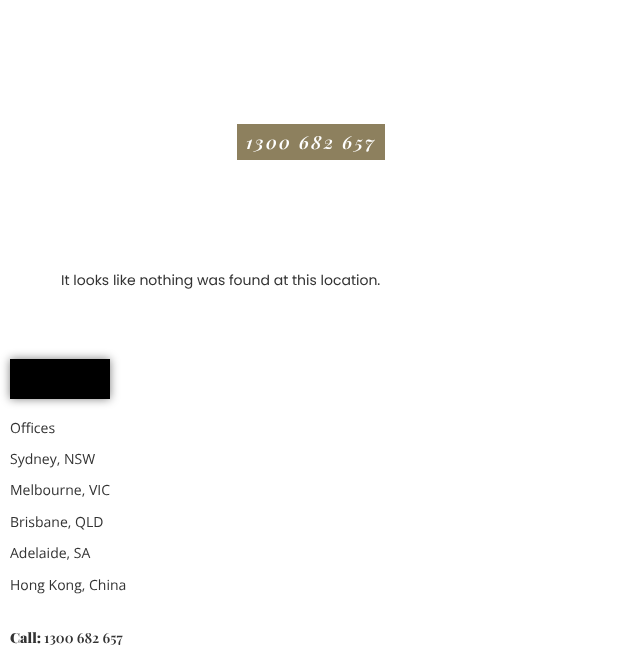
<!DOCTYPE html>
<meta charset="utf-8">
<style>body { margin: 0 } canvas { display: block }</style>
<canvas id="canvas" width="622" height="666"></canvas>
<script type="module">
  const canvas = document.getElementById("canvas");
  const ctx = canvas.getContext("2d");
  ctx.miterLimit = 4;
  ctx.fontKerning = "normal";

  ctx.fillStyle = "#ffffff";
  ctx.fillRect(0, 0, 622, 666);
  ctx.fillStyle = "#8d805e";
  ctx.fillRect(237, 124, 148, 36);
  ctx.letterSpacing = "2.25px";
  ctx.font = "italic 600 18px Playfair Display";
  ctx.fillStyle = "#ffffff";
  ctx.fillText("1300 682 657", 246, 149);
  ctx.letterSpacing = "0px";
  ctx.font = "14px Poppins";
  ctx.fillStyle = "#333333";
  ctx.fillText("It looks like nothing was found at this location.", 61, 285);
  ctx.fillStyle = "rgba(0, 0, 0, 0.5)";
  ctx.filter = "blur(5px)";
  ctx.beginPath();
  ctx.rect(10, 359, 100, 40);
  ctx.fill();
  ctx.filter = "none";
  ctx.fillStyle = "#000000";
  ctx.fillRect(10, 359, 100, 40);
  ctx.font = "14px Open Sans";
  ctx.fillStyle = "#333333";
  ctx.fillText("Offices", 10, 433);
  ctx.fillText("Sydney, NSW", 10, 464);
  ctx.fillText("Melbourne, VIC", 10, 495);
  ctx.fillText("Brisbane, QLD", 10, 527);
  ctx.fillText("Adelaide, SA", 10, 558);
  ctx.fillText("Hong Kong, China", 10, 590);
  ctx.font = "900 14px Playfair Display";
  ctx.fillText("Call:", 10, 643);
  ctx.font = "600 14px Playfair Display";
  ctx.fillText("1300 682 657", 44, 643);
</script>
